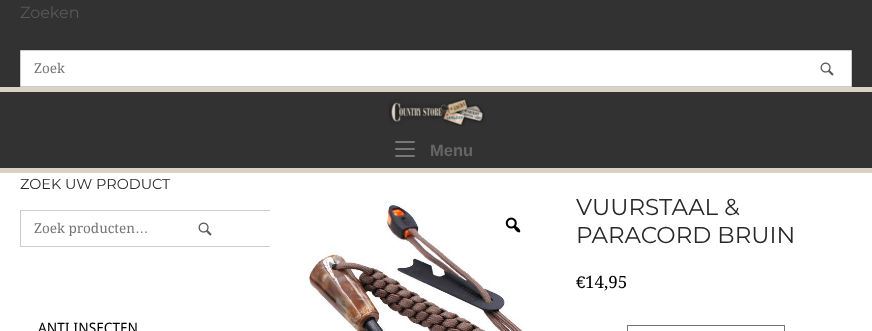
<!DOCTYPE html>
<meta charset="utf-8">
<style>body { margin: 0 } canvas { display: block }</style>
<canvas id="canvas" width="872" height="331"></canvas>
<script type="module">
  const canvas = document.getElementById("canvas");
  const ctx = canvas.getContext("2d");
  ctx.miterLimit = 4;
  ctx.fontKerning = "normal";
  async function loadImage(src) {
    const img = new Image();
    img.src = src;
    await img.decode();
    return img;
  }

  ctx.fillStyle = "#ffffff";
  ctx.fillRect(0, 0, 872, 331);
  ctx.fillStyle = "#323233";
  ctx.fillRect(0, 0, 872, 87);
  ctx.fillStyle = "#d9d1c1";
  ctx.fillRect(0, 87, 872, 5);
  ctx.font = "100 16px Montserrat";
  ctx.fillStyle = "#595959";
  ctx.fillText("Zoeken", 20, 18);
  ctx.fillStyle = "#ffffff";
  ctx.beginPath();
  ctx.rect(20.5, 50.5, 831, 36);
  ctx.fill();
  ctx.strokeStyle = "#cccccc";
  ctx.stroke();
  ctx.font = "13.5px Droid Serif";
  ctx.fillStyle = "#757575";
  ctx.fillText("Zoek", 34, 73);
  ctx.drawImage(await loadImage("img1.png"), 820, 62, 14, 14);
  ctx.fillStyle = "#323233";
  ctx.fillRect(0, 92, 872, 76);
  ctx.fillStyle = "#d9d1c1";
  ctx.fillRect(0, 168, 872, 5);
  ctx.drawImage(await loadImage("img2.png"), 388, 98, 97, 28);
  ctx.fillStyle = "#777777";
  ctx.beginPath();
  ctx.roundRect(395, 141, 20, 2, 1);
  ctx.fill();
  ctx.beginPath();
  ctx.roundRect(395, 148, 20, 2, 1);
  ctx.fill();
  ctx.beginPath();
  ctx.roundRect(395, 155, 20, 2, 1);
  ctx.fill();
  ctx.font = "bold 16.5px Liberation Sans";
  ctx.fillStyle = "#666666";
  ctx.fillText("Menu", 430, 156);
  ctx.font = "100 14.4px Montserrat";
  ctx.fillStyle = "#292929";
  ctx.fillText("ZOEK UW PRODUCT", 20, 189);
  ctx.drawImage(await loadImage("img3.png"), 308, 201, 216, 130);
  ctx.save();
  ctx.beginPath();
  ctx.rect(20, 173, 250, 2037);
  ctx.clip();
  ctx.strokeRect(20.5, 210.5, 299, 36);
  ctx.restore();
  ctx.save();
  ctx.beginPath();
  ctx.rect(34, 220, 227, 16);
  ctx.clip();
  ctx.font = "13.5px Droid Serif";
  ctx.fillStyle = "#757575";
  ctx.fillText("Zoek producten", 34, 233);
  ctx.restore();
  ctx.font = "13.5px Liberation Sans";
  ctx.fillStyle = "#757575";
  ctx.fillText("…", 135, 233);
  ctx.drawImage(await loadImage("img1.png"), 198, 222, 14, 14);
  ctx.font = "14.4px Droid Sans";
  ctx.fillStyle = "#000000";
  ctx.fillText("ANTI INSECTEN", 38, 333);
  ctx.drawImage(await loadImage("img4.png"), 505, 217, 16, 16);
  ctx.font = "100 23px Montserrat";
  ctx.fillStyle = "#292929";
  ctx.fillText("VUURSTAAL &", 576, 215);
  ctx.fillText("PARACORD BRUIN", 576, 243);
  ctx.font = "17px Liberation Sans";
  ctx.fillStyle = "#000000";
  ctx.fillText("€", 576, 288);
  ctx.font = "17px Droid Serif";
  ctx.fillText("14,95", 585, 288);
  ctx.strokeStyle = "#767676";
  ctx.strokeRect(627.5, 325.5, 157, 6);
</script>
